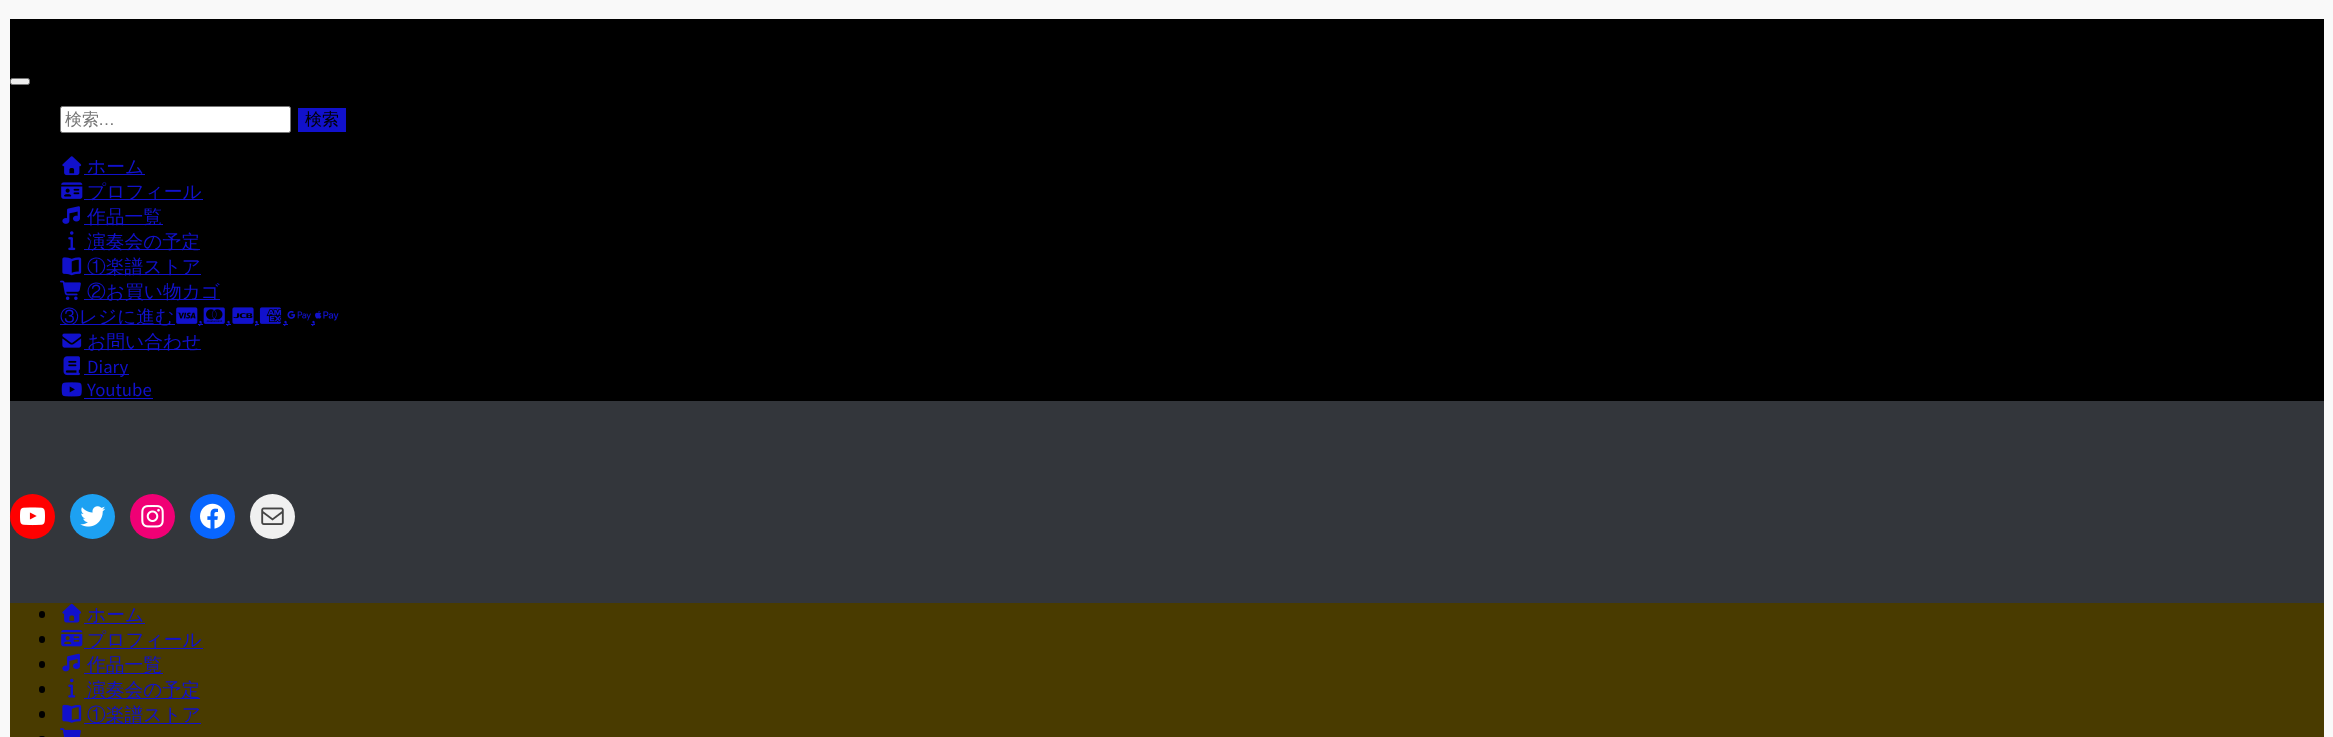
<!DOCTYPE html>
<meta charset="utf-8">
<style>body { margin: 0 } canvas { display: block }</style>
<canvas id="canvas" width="2333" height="737"></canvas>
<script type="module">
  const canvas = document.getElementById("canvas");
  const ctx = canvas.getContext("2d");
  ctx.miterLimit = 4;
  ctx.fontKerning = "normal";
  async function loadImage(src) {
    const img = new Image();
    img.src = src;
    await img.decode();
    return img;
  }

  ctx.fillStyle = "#f9f9f9";
  ctx.fillRect(0, 0, 2333, 737);
  ctx.fillStyle = "#33363b";
  ctx.fillRect(10, 401, 2314, 202);
  ctx.fillStyle = "#000000";
  ctx.fillRect(10, 19, 2314, 382);
  ctx.fillStyle = "#efefef";
  ctx.beginPath();
  ctx.roundRect(10.5, 78.5, 19, 6, 2);
  ctx.fill();
  ctx.strokeStyle = "#767676";
  ctx.stroke();
  ctx.fillStyle = "#ffffff";
  ctx.beginPath();
  ctx.roundRect(60.5, 106.5, 230, 26, 2);
  ctx.fill();
  ctx.stroke();
  ctx.font = "500 17px WenQuanYi Zen Hei";
  ctx.fillStyle = "#757575";
  ctx.fillText("検索", 65, 125);
  ctx.font = "17px Liberation Sans";
  ctx.fillText("…", 98, 125);
  ctx.fillStyle = "#1111cc";
  ctx.fillRect(298, 108, 48, 24);
  ctx.font = "500 17px WenQuanYi Zen Hei";
  ctx.fillStyle = "#000000";
  ctx.fillText("検索", 305, 125);
  ctx.drawImage(await loadImage("img1.png"), 62, 156, 20, 20);
  ctx.fillStyle = "#1111cc";
  ctx.fillRect(84, 174, 61, 1);
  ctx.font = "500 18.75px WenQuanYi Zen Hei";
  ctx.fillText("ホーム", 87, 173);
  ctx.drawImage(await loadImage("img2.png"), 61, 182, 22, 17);
  ctx.fillRect(84, 199, 119, 1);
  ctx.fillText("プロフィール", 87, 198);
  ctx.drawImage(await loadImage("img3.png"), 62, 206, 18, 18);
  ctx.fillRect(84, 224, 79, 1);
  ctx.fillText("作品一覧", 87, 223);
  ctx.drawImage(await loadImage("img4.png"), 68, 231, 8, 20);
  ctx.fillRect(84, 249, 116, 1);
  ctx.fillText("演奏会の予定", 87, 248);
  ctx.drawImage(await loadImage("img5.png"), 62, 257, 20, 19);
  ctx.fillRect(84, 274, 117, 1);
  ctx.fillText("①楽譜ストア", 87, 273);
  ctx.drawImage(await loadImage("img6.png"), 60, 280, 21, 20);
  ctx.fillRect(84, 299, 136, 1);
  ctx.fillText("②お買い物カゴ", 87, 298);
  ctx.fillRect(60, 324, 115, 1);
  ctx.fillText("③レジに進む", 60, 323);
  ctx.drawImage(await loadImage("img7.png"), 176, 307, 22, 17);
  ctx.drawImage(await loadImage("img8.png"), 203, 307, 22, 17);
  ctx.drawImage(await loadImage("img9.png"), 232, 307, 22, 17);
  ctx.drawImage(await loadImage("img10.png"), 259, 307, 23, 17);
  ctx.drawImage(await loadImage("img11.png"), 287, 310, 24, 11);
  ctx.drawImage(await loadImage("img12.png"), 315, 310, 24, 11);
  ctx.fillRect(198, 324, 5, 1);
  ctx.font = "18.75px Source Sans Pro";
  ctx.fillText(",", 198, 323);
  ctx.fillRect(226, 324, 5, 1);
  ctx.fillText(",", 226, 323);
  ctx.fillRect(255, 324, 4, 1);
  ctx.fillText(",", 254, 323);
  ctx.fillRect(283, 324, 5, 1);
  ctx.fillText(",", 283, 323);
  ctx.fillRect(311, 324, 4, 1);
  ctx.fillText(",", 311, 323);
  ctx.drawImage(await loadImage("img13.png"), 62, 333, 20, 15);
  ctx.fillRect(84, 349, 117, 1);
  ctx.font = "500 18.75px WenQuanYi Zen Hei";
  ctx.fillText("お問い合わせ", 87, 348);
  ctx.drawImage(await loadImage("img14.png"), 63, 356, 17, 20);
  ctx.fillRect(84, 374, 45, 1);
  ctx.font = "18.75px Source Sans Pro";
  ctx.fillText("Diary", 87, 373);
  ctx.drawImage(await loadImage("img15.png"), 61, 382, 21, 15);
  ctx.fillText("Youtube", 87, 396);
  ctx.fillRect(84, 398, 69, 1);
  ctx.fillStyle = "#ff0000";
  ctx.beginPath();
  ctx.arc(32.5, 516.5, 22.5, 0, Math.PI * 2);
  ctx.fill();
  ctx.drawImage(await loadImage("img16.png"), 20, 507, 25, 19);
  ctx.fillStyle = "#1da1f2";
  ctx.beginPath();
  ctx.arc(92.5, 516.5, 22.5, 0, Math.PI * 2);
  ctx.fill();
  ctx.drawImage(await loadImage("img17.png"), 80, 506, 26, 21);
  ctx.fillStyle = "#f00075";
  ctx.beginPath();
  ctx.arc(152.5, 516.5, 22.5, 0, Math.PI * 2);
  ctx.fill();
  ctx.drawImage(await loadImage("img18.png"), 141, 505, 23, 23);
  ctx.fillStyle = "#0866ff";
  ctx.beginPath();
  ctx.arc(212.5, 516.5, 22.5, 0, Math.PI * 2);
  ctx.fill();
  ctx.drawImage(await loadImage("img19.png"), 200, 503, 25, 26);
  ctx.fillStyle = "#f0f0f0";
  ctx.beginPath();
  ctx.arc(272.5, 516.5, 22.5, 0, Math.PI * 2);
  ctx.fill();
  ctx.drawImage(await loadImage("img20.png"), 261, 507, 23, 18);
  ctx.fillStyle = "#493b00";
  ctx.fillRect(10, 603, 2314, 134);
  ctx.fillStyle = "#000000";
  ctx.beginPath();
  ctx.roundRect(39, 611, 6, 7, 3);
  ctx.fill();
  ctx.drawImage(await loadImage("img21.png"), 62, 603, 20, 20);
  ctx.font = "500 18.75px WenQuanYi Zen Hei";
  ctx.fillStyle = "#1111cc";
  ctx.fillText("ホーム", 87, 621);
  ctx.fillRect(84, 623, 61, 1);
  ctx.fillStyle = "#000000";
  ctx.beginPath();
  ctx.roundRect(39, 636, 6, 7, 3);
  ctx.fill();
  ctx.drawImage(await loadImage("img22.png"), 61, 629, 22, 18);
  ctx.fillStyle = "#1111cc";
  ctx.fillRect(84, 648, 119, 1);
  ctx.fillText("プロフィール", 87, 646);
  ctx.fillStyle = "#000000";
  ctx.beginPath();
  ctx.roundRect(39, 661, 6, 7, 3);
  ctx.fill();
  ctx.drawImage(await loadImage("img23.png"), 62, 653, 18, 19);
  ctx.fillStyle = "#1111cc";
  ctx.fillRect(84, 673, 79, 1);
  ctx.fillText("作品一覧", 87, 671);
  ctx.fillStyle = "#000000";
  ctx.beginPath();
  ctx.roundRect(39, 686, 6, 7, 3);
  ctx.fill();
  ctx.drawImage(await loadImage("img24.png"), 68, 678, 8, 20);
  ctx.fillStyle = "#1111cc";
  ctx.fillRect(84, 698, 116, 1);
  ctx.fillText("演奏会の予定", 87, 696);
  ctx.fillStyle = "#000000";
  ctx.beginPath();
  ctx.roundRect(39, 711, 6, 7, 3);
  ctx.fill();
  ctx.drawImage(await loadImage("img25.png"), 62, 704, 20, 19);
  ctx.fillStyle = "#1111cc";
  ctx.fillRect(84, 723, 117, 1);
  ctx.fillText("①楽譜ストア", 87, 721);
  ctx.drawImage(await loadImage("img26.png"), 60, 728, 21, 9);
  ctx.fillStyle = "#000000";
  ctx.beginPath();
  ctx.roundRect(39, 736, 6, 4, 3);
  ctx.fill();
</script>
